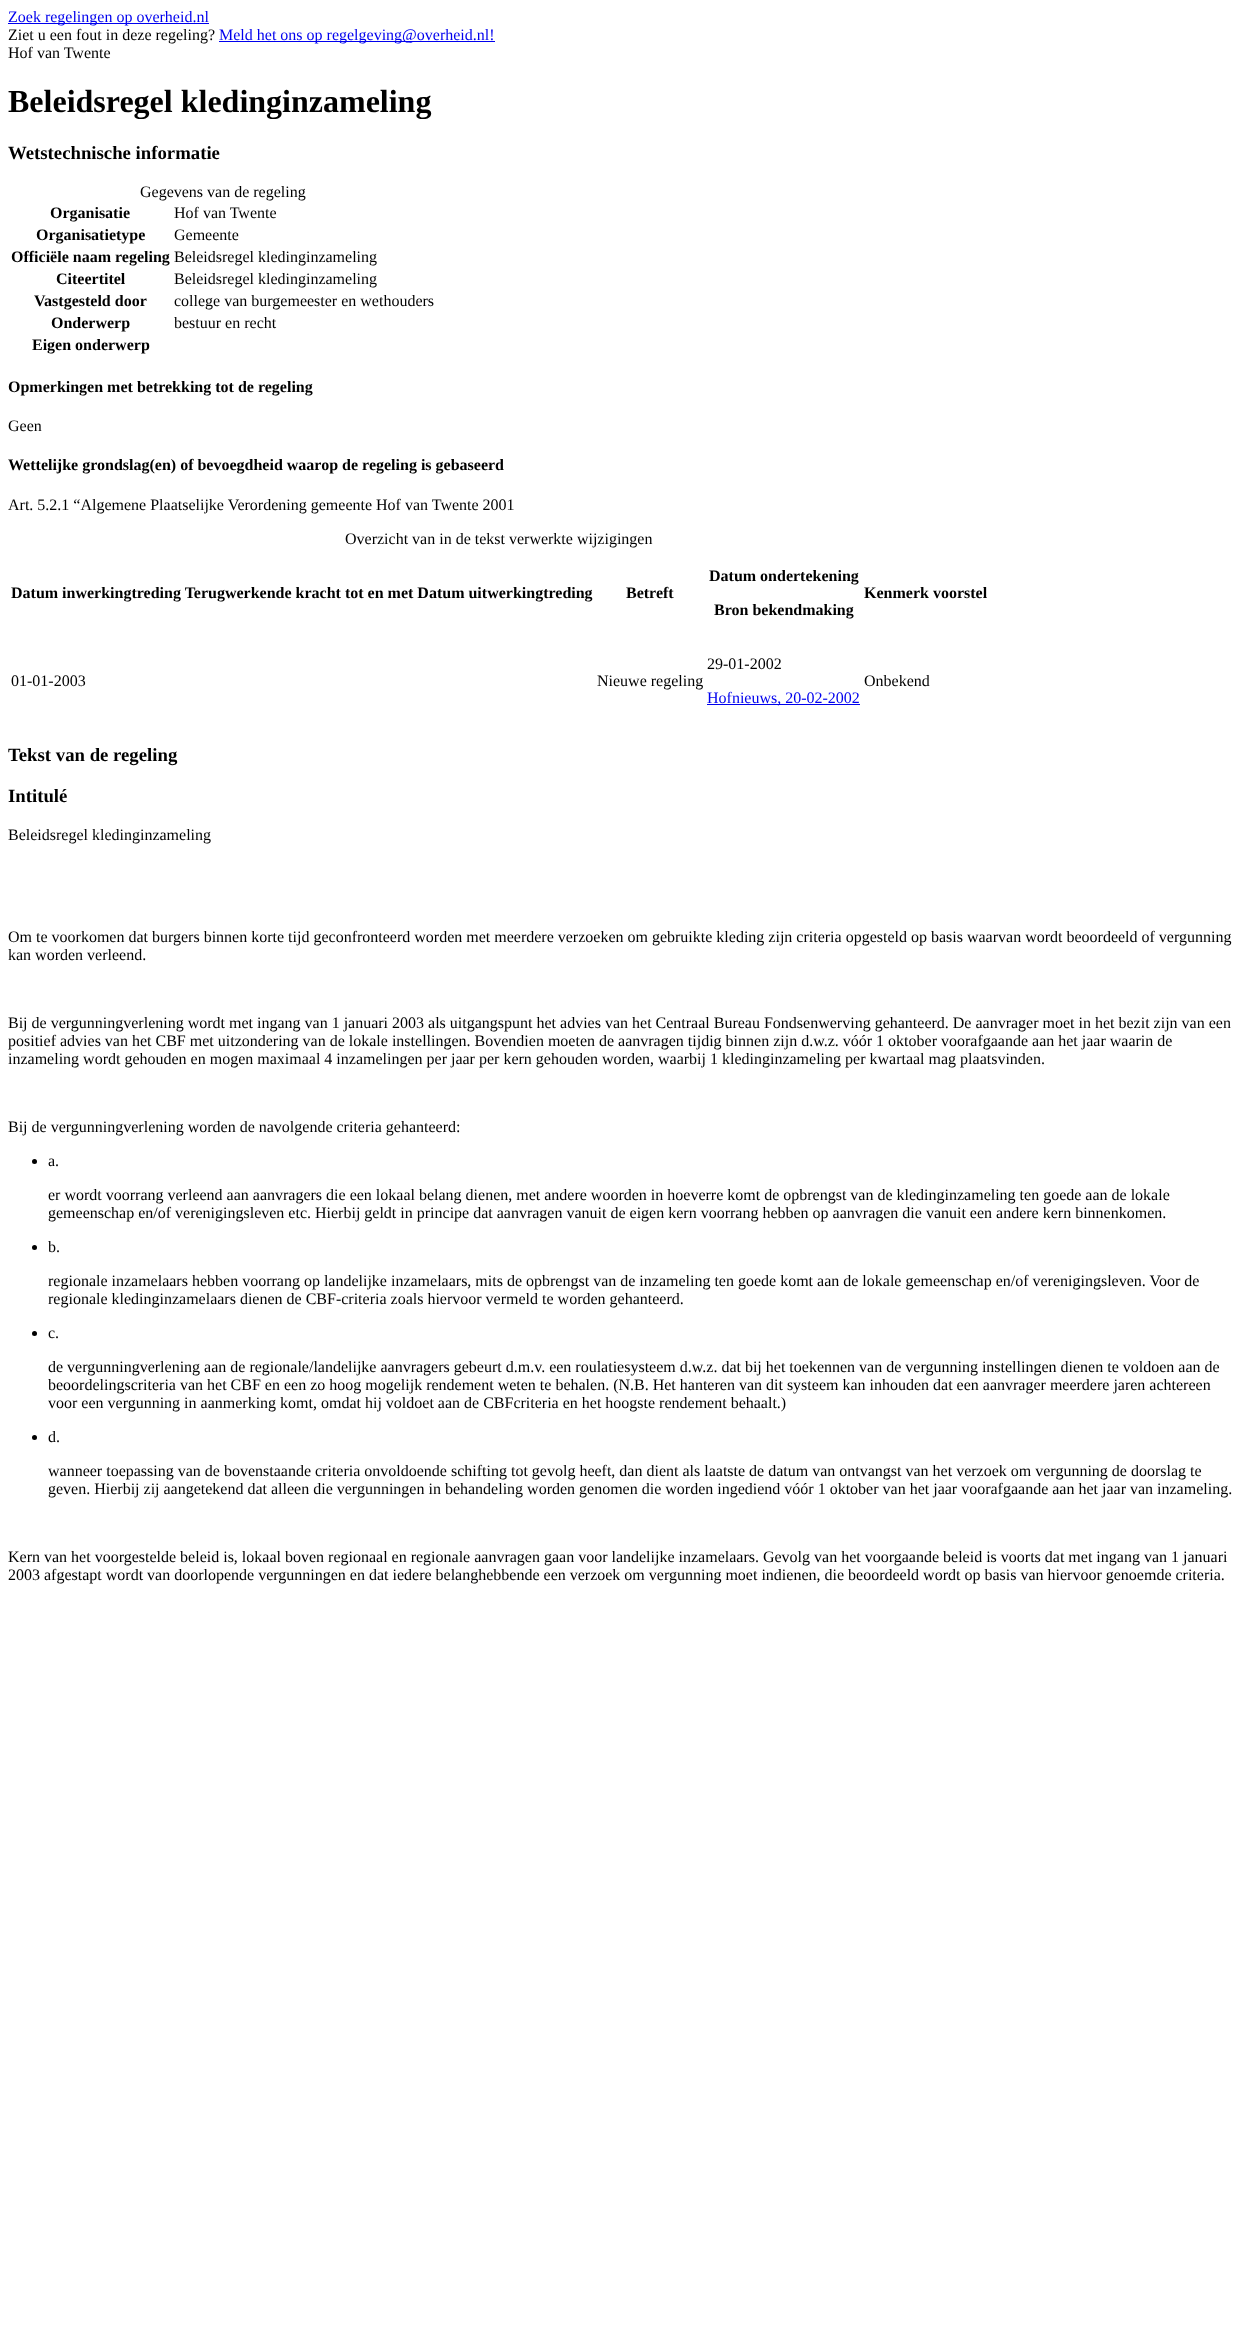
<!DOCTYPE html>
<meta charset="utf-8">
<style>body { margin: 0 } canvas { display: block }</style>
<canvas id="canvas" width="1246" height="2347"></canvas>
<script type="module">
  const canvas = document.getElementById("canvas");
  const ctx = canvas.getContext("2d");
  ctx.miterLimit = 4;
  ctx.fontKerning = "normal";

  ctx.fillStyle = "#ffffff";
  ctx.fillRect(0, 0, 1246, 2347);
  ctx.fillStyle = "#0000ee";
  ctx.fillRect(8, 23, 201, 1);
  ctx.font = "16px Liberation Serif";
  ctx.fillText("Zoek regelingen op overheid.nl", 8, 22);
  ctx.fillStyle = "#000000";
  ctx.fillText("Ziet u een fout in deze regeling?", 8, 40);
  ctx.fillStyle = "#0000ee";
  ctx.fillRect(219, 41, 276, 1);
  ctx.fillText("Meld het ons op regelgeving@overheid.nl!", 219, 40);
  ctx.fillStyle = "#000000";
  ctx.fillText("Hof van Twente", 8, 58);
  ctx.font = "bold 32px Liberation Serif";
  ctx.fillText("Beleidsregel kledinginzameling", 8, 112);
  ctx.font = "bold 18.75px Liberation Serif";
  ctx.fillText("Wetstechnische informatie", 8, 159);
  ctx.font = "16px Liberation Serif";
  ctx.fillText("Gegevens van de regeling", 140, 197);
  ctx.font = "bold 16px Liberation Serif";
  ctx.fillText("Organisatie", 50, 218);
  ctx.font = "16px Liberation Serif";
  ctx.fillText("Hof van Twente", 174, 218);
  ctx.font = "bold 16px Liberation Serif";
  ctx.fillText("Organisatietype", 36, 240);
  ctx.font = "16px Liberation Serif";
  ctx.fillText("Gemeente", 174, 240);
  ctx.font = "bold 16px Liberation Serif";
  ctx.fillText("Officiële naam regeling", 11, 262);
  ctx.font = "16px Liberation Serif";
  ctx.fillText("Beleidsregel kledinginzameling", 174, 262);
  ctx.font = "bold 16px Liberation Serif";
  ctx.fillText("Citeertitel", 56, 284);
  ctx.font = "16px Liberation Serif";
  ctx.fillText("Beleidsregel kledinginzameling", 174, 284);
  ctx.font = "bold 16px Liberation Serif";
  ctx.fillText("Vastgesteld door", 34, 306);
  ctx.font = "16px Liberation Serif";
  ctx.fillText("college van burgemeester en wethouders", 174, 306);
  ctx.font = "bold 16px Liberation Serif";
  ctx.fillText("Onderwerp", 51, 328);
  ctx.font = "16px Liberation Serif";
  ctx.fillText("bestuur en recht", 174, 328);
  ctx.font = "bold 16px Liberation Serif";
  ctx.fillText("Eigen onderwerp", 32, 350);
  ctx.fillText("Opmerkingen met betrekking tot de regeling", 8, 392);
  ctx.font = "16px Liberation Serif";
  ctx.fillText("Geen", 8, 431);
  ctx.font = "bold 16px Liberation Serif";
  ctx.fillText("Wettelijke grondslag(en) of bevoegdheid waarop de regeling is gebaseerd", 8, 470);
  ctx.font = "16px Liberation Serif";
  ctx.fillText("Art. 5.2.1 “Algemene Plaatselijke Verordening gemeente Hof van Twente 2001", 8, 510);
  ctx.fillText("Overzicht van in de tekst verwerkte wijzigingen", 345, 544);
  ctx.font = "bold 16px Liberation Serif";
  ctx.fillText("Datum inwerkingtreding Terugwerkende kracht tot en met Datum uitwerkingtreding", 11, 598);
  ctx.fillText("Betreft", 626, 598);
  ctx.fillText("Datum ondertekening", 709, 581);
  ctx.fillText("Bron bekendmaking", 714, 615);
  ctx.fillText("Kenmerk voorstel", 864, 598);
  ctx.font = "16px Liberation Serif";
  ctx.fillText("01-01-2003", 11, 686);
  ctx.fillText("Nieuwe regeling", 597, 686);
  ctx.fillText("29-01-2002", 707, 669);
  ctx.fillStyle = "#0000ee";
  ctx.fillRect(707, 704, 153, 1);
  ctx.fillText("Hofnieuws, 20-02-2002", 707, 703);
  ctx.fillStyle = "#000000";
  ctx.fillText("Onbekend", 864, 686);
  ctx.font = "bold 18.75px Liberation Serif";
  ctx.fillText("Tekst van de regeling", 8, 761);
  ctx.fillText("Intitulé", 8, 802);
  ctx.font = "16px Liberation Serif";
  ctx.fillText("Beleidsregel kledinginzameling", 8, 840);
  ctx.fillText("Om te voorkomen dat burgers binnen korte tijd geconfronteerd worden met meerdere verzoeken om gebruikte kleding zijn criteria opgesteld op basis waarvan wordt beoordeeld of vergunning", 8, 942);
  ctx.fillText("kan worden verleend.", 8, 960);
  ctx.fillText("Bij de vergunningverlening wordt met ingang van 1 januari 2003 als uitgangspunt het advies van het Centraal Bureau Fondsenwerving gehanteerd. De aanvrager moet in het bezit zijn van een", 8, 1028);
  ctx.fillText("positief advies van het CBF met uitzondering van de lokale instellingen. Bovendien moeten de aanvragen tijdig binnen zijn d.w.z. vóór 1 oktober voorafgaande aan het jaar waarin de", 8, 1046);
  ctx.fillText("inzameling wordt gehouden en mogen maximaal 4 inzamelingen per jaar per kern gehouden worden, waarbij 1 kledinginzameling per kwartaal mag plaatsvinden.", 8, 1064);
  ctx.fillText("Bij de vergunningverlening worden de navolgende criteria gehanteerd:", 8, 1132);
  ctx.beginPath();
  ctx.arc(34.5, 1161.5, 2.5, 0, Math.PI * 2);
  ctx.fill();
  ctx.fillText("a.", 48, 1166);
  ctx.fillText("er wordt voorrang verleend aan aanvragers die een lokaal belang dienen, met andere woorden in hoeverre komt de opbrengst van de kledinginzameling ten goede aan de lokale", 48, 1200);
  ctx.fillText("gemeenschap en/of verenigingsleven etc. Hierbij geldt in principe dat aanvragen vanuit de eigen kern voorrang hebben op aanvragen die vanuit een andere kern binnenkomen.", 48, 1218);
  ctx.beginPath();
  ctx.arc(34.5, 1247.5, 2.5, 0, Math.PI * 2);
  ctx.fill();
  ctx.fillText("b.", 48, 1252);
  ctx.fillText("regionale inzamelaars hebben voorrang op landelijke inzamelaars, mits de opbrengst van de inzameling ten goede komt aan de lokale gemeenschap en/of verenigingsleven. Voor de", 48, 1286);
  ctx.fillText("regionale kledinginzamelaars dienen de CBF-criteria zoals hiervoor vermeld te worden gehanteerd.", 48, 1304);
  ctx.beginPath();
  ctx.arc(34.5, 1333.5, 2.5, 0, Math.PI * 2);
  ctx.fill();
  ctx.fillText("c.", 48, 1338);
  ctx.fillText("de vergunningverlening aan de regionale/landelijke aanvragers gebeurt d.m.v. een roulatiesysteem d.w.z. dat bij het toekennen van de vergunning instellingen dienen te voldoen aan de", 48, 1372);
  ctx.fillText("beoordelingscriteria van het CBF en een zo hoog mogelijk rendement weten te behalen. (N.B. Het hanteren van dit systeem kan inhouden dat een aanvrager meerdere jaren achtereen", 48, 1390);
  ctx.fillText("voor een vergunning in aanmerking komt, omdat hij voldoet aan de CBFcriteria en het hoogste rendement behaalt.)", 48, 1408);
  ctx.beginPath();
  ctx.arc(34.5, 1437.5, 2.5, 0, Math.PI * 2);
  ctx.fill();
  ctx.fillText("d.", 48, 1442);
  ctx.fillText("wanneer toepassing van de bovenstaande criteria onvoldoende schifting tot gevolg heeft, dan dient als laatste de datum van ontvangst van het verzoek om vergunning de doorslag te", 48, 1476);
  ctx.fillText("geven. Hierbij zij aangetekend dat alleen die vergunningen in behandeling worden genomen die worden ingediend vóór 1 oktober van het jaar voorafgaande aan het jaar van inzameling.", 48, 1494);
  ctx.fillText("Kern van het voorgestelde beleid is, lokaal boven regionaal en regionale aanvragen gaan voor landelijke inzamelaars. Gevolg van het voorgaande beleid is voorts dat met ingang van 1 januari", 8, 1562);
  ctx.fillText("2003 afgestapt wordt van doorlopende vergunningen en dat iedere belanghebbende een verzoek om vergunning moet indienen, die beoordeeld wordt op basis van hiervoor genoemde criteria.", 8, 1580);
</script>
